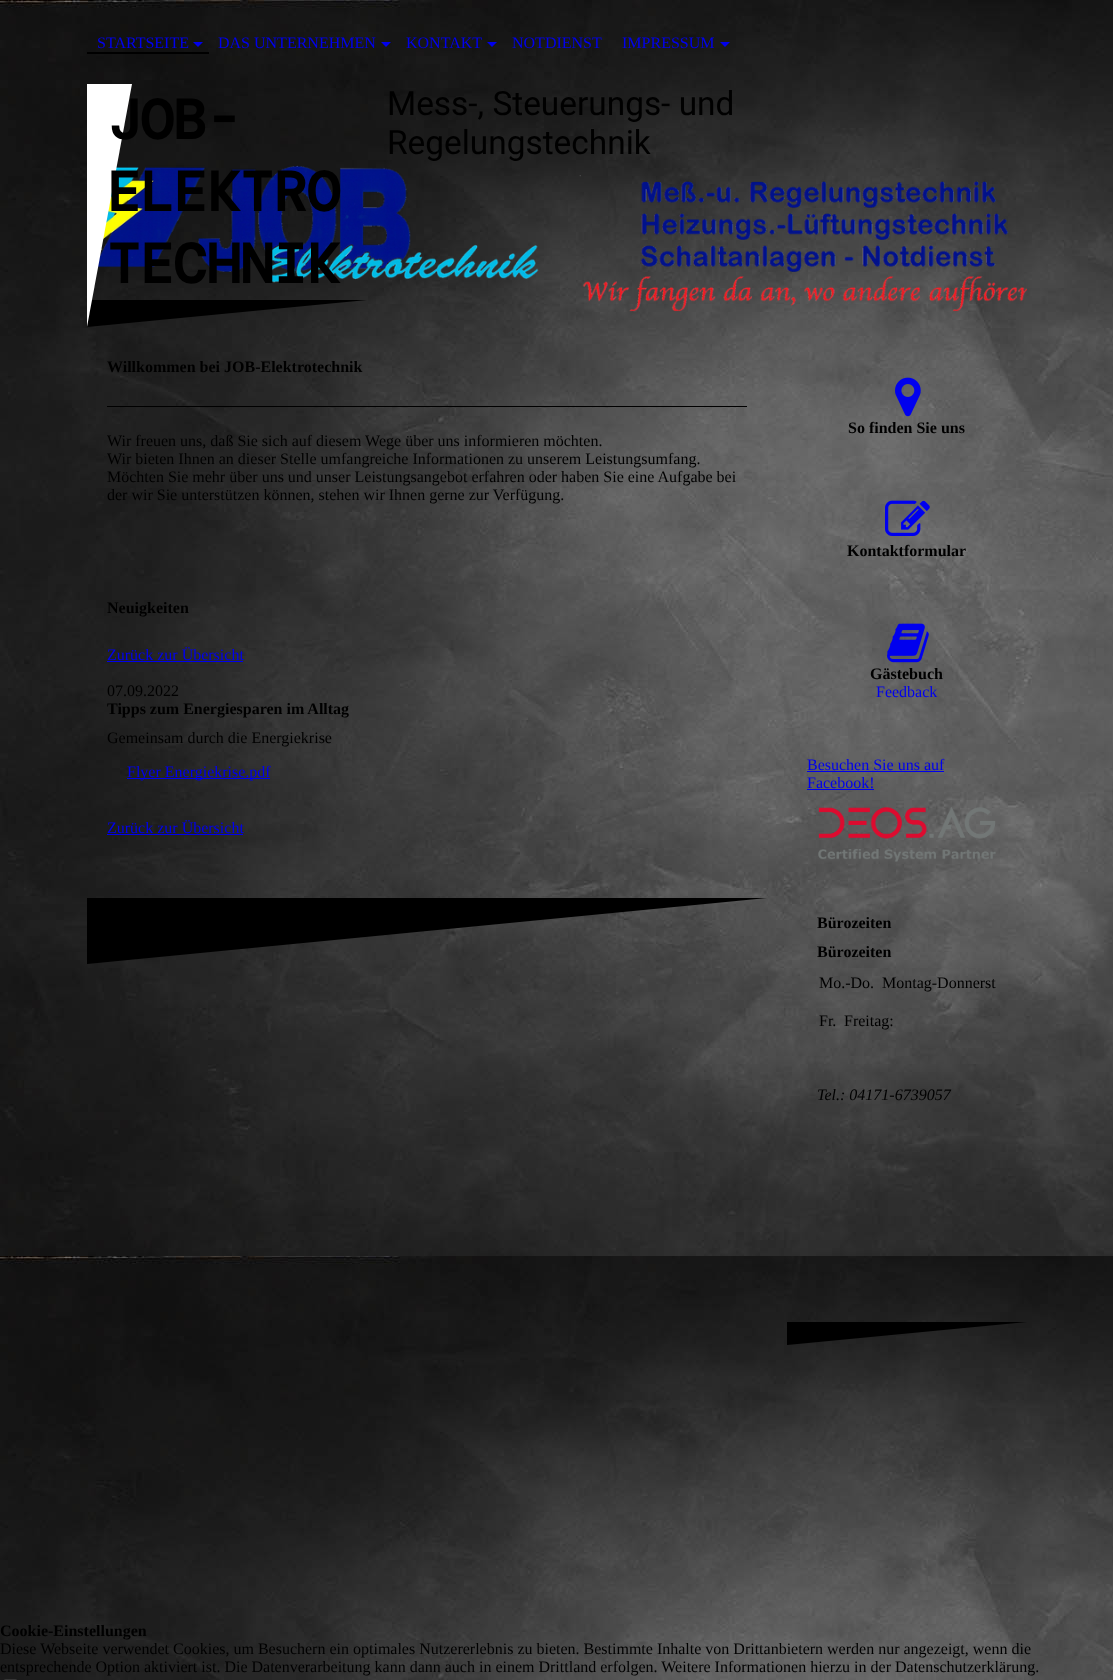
<!DOCTYPE html>
<meta charset="utf-8">
<style>body { margin: 0 } canvas { display: block }</style>
<canvas id="canvas" width="1113" height="1680"></canvas>
<script type="module">
  const canvas = document.getElementById("canvas");
  const ctx = canvas.getContext("2d");
  ctx.miterLimit = 4;
  ctx.fontKerning = "normal";
  async function loadImage(src) {
    const img = new Image();
    img.src = src;
    await img.decode();
    return img;
  }

  ctx.fillStyle = "#ffffff";
  ctx.fillRect(0, 0, 1113, 1680);
  ctx.drawImage(await loadImage("img1.png"), 0, 0, 1113, 1680);
  ctx.font = "16px Liberation Serif";
  ctx.fillStyle = "#0000ee";
  ctx.fillText("STARTSEITE", 97, 48);
  ctx.beginPath();
  ctx.moveTo(193, 42);
  ctx.lineTo(203, 42);
  ctx.lineTo(198, 47);
  ctx.closePath();
  ctx.fill();
  ctx.fillText("DAS UNTERNEHMEN", 218, 48);
  ctx.beginPath();
  ctx.moveTo(381, 42);
  ctx.lineTo(391, 42);
  ctx.lineTo(386, 47);
  ctx.closePath();
  ctx.fill();
  ctx.fillText("KONTAKT", 406, 48);
  ctx.beginPath();
  ctx.moveTo(487, 42);
  ctx.lineTo(497, 42);
  ctx.lineTo(492, 47);
  ctx.closePath();
  ctx.fill();
  ctx.fillText("NOTDIENST", 512, 48);
  ctx.fillText("IMPRESSUM", 622, 48);
  ctx.beginPath();
  ctx.moveTo(720, 42);
  ctx.lineTo(730, 42);
  ctx.lineTo(725, 47);
  ctx.closePath();
  ctx.fill();
  ctx.fillStyle = "#000000";
  ctx.fillRect(87, 52, 122, 2);
  ctx.drawImage(await loadImage("img2.png"), 97, 165, 930, 147);
  ctx.beginPath();
  ctx.moveTo(87, 327);
  ctx.lineTo(87, 300);
  ctx.lineTo(367, 300);
  ctx.closePath();
  ctx.fill();
  ctx.fillStyle = "#ffffff";
  ctx.beginPath();
  ctx.moveTo(87, 327);
  ctx.lineTo(87, 84);
  ctx.lineTo(132, 84);
  ctx.closePath();
  ctx.fill();
  ctx.font = "bold 55.5px DM Mono";
  ctx.fillStyle = "#000000";
  ctx.fillText("JOB-", 107, 139);
  ctx.fillText("ELEKTRO", 107, 211);
  ctx.fillText("TECHNIK", 107, 283);
  ctx.font = "33.4px Roboto";
  ctx.fillText("Mess-, Steuerungs- und", 387, 115);
  ctx.fillText("Regelungstechnik", 387, 154);
  ctx.font = "bold 16px Liberation Serif";
  ctx.fillText("Willkommen bei JOB-Elektrotechnik", 107, 372);
  ctx.fillRect(107, 406, 640, 1);
  ctx.font = "16px Liberation Serif";
  ctx.fillText("Wir freuen uns, daß Sie sich auf diesem Wege über uns informieren möchten.", 107, 446);
  ctx.fillText("Wir bieten Ihnen an dieser Stelle umfangreiche Informationen zu unserem Leistungsumfang.", 107, 464);
  ctx.fillText("Möchten Sie mehr über uns und unser Leistungsangebot erfahren oder haben Sie eine Aufgabe bei", 107, 482);
  ctx.fillText("der wir Sie unterstützen können, stehen wir Ihnen gerne zur Verfügung.", 107, 500);
  ctx.font = "bold 16px Liberation Serif";
  ctx.fillText("Neuigkeiten", 107, 613);
  ctx.font = "16px Liberation Serif";
  ctx.fillStyle = "#0000ee";
  ctx.fillText("Zurück zur Übersicht", 107, 660);
  ctx.fillRect(107, 661, 136, 1);
  ctx.fillStyle = "#000000";
  ctx.fillText("07.09.2022", 107, 696);
  ctx.save();
  ctx.beginPath();
  ctx.rect(107, 599, 640, 274);
  ctx.clip();
  ctx.font = "bold 16px Liberation Serif";
  ctx.fillText("Tipps zum Energiesparen im Alltag", 107, 714);
  ctx.restore();
  ctx.fillText("Gemeinsam durch die Energiekrise", 107, 743);
  ctx.fillStyle = "#0000ee";
  ctx.fillRect(127, 778, 143, 1);
  ctx.fillText("Flyer Energiekrise.pdf", 127, 777);
  ctx.fillText("Zurück zur Übersicht", 107, 833);
  ctx.fillRect(107, 834, 136, 1);
  ctx.fillStyle = "#000000";
  ctx.beginPath();
  ctx.moveTo(87, 964);
  ctx.lineTo(87, 898);
  ctx.lineTo(767, 898);
  ctx.closePath();
  ctx.fill();
  ctx.drawImage(await loadImage("img3.png"), 895, 377, 26, 40);
  ctx.font = "bold 16px Liberation Serif";
  ctx.fillText("So finden Sie uns", 848, 433);
  ctx.drawImage(await loadImage("img4.png"), 885, 500, 45, 36);
  ctx.fillText("Kontaktformular", 847, 556);
  ctx.drawImage(await loadImage("img5.png"), 887, 623, 42, 40);
  ctx.fillText("Gästebuch", 870, 679);
  ctx.font = "16px Liberation Serif";
  ctx.fillStyle = "#0000ee";
  ctx.fillText("Feedback", 876, 697);
  ctx.fillText("Besuchen Sie uns auf", 807, 770);
  ctx.fillRect(807, 771, 137, 1);
  ctx.fillText("Facebook!", 807, 788);
  ctx.fillRect(807, 789, 67, 1);
  ctx.drawImage(await loadImage("img6.png"), 818, 807, 178, 55);
  ctx.font = "bold 16px Liberation Serif";
  ctx.fillStyle = "#000000";
  ctx.fillText("Bürozeiten", 817, 928);
  ctx.fillText("Bürozeiten", 817, 957);
  ctx.font = "16px Liberation Serif";
  ctx.fillText("Mo.-Do.", 819, 988);
  ctx.fillText("Montag-Donnerst", 882, 988);
  ctx.fillText("Fr.", 819, 1026);
  ctx.fillText("Freitag:", 844, 1026);
  ctx.font = "italic 16px Liberation Serif";
  ctx.fillText("Tel.: 04171-6739057", 817, 1100);
  ctx.beginPath();
  ctx.moveTo(787, 1345);
  ctx.lineTo(787, 1322);
  ctx.lineTo(1027, 1322);
  ctx.closePath();
  ctx.fill();
  ctx.font = "bold 16px Liberation Serif";
  ctx.fillText("Cookie-Einstellungen", 0, 1636);
  ctx.font = "16px Liberation Serif";
  ctx.fillText("Diese Webseite verwendet Cookies, um Besuchern ein optimales Nutzererlebnis zu bieten. Bestimmte Inhalte von Drittanbietern werden nur angezeigt, wenn die", 0, 1654);
  ctx.fillText("entsprechende Option aktiviert ist. Die Datenverarbeitung kann dann auch in einem Drittland erfolgen. Weitere Informationen hierzu in der Datenschutzerklärung.", 0, 1672);
  ctx.fillStyle = "#363636";
  ctx.beginPath();
  ctx.roundRect(4, 1679, 13, 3, 2);
  ctx.fill();
</script>
